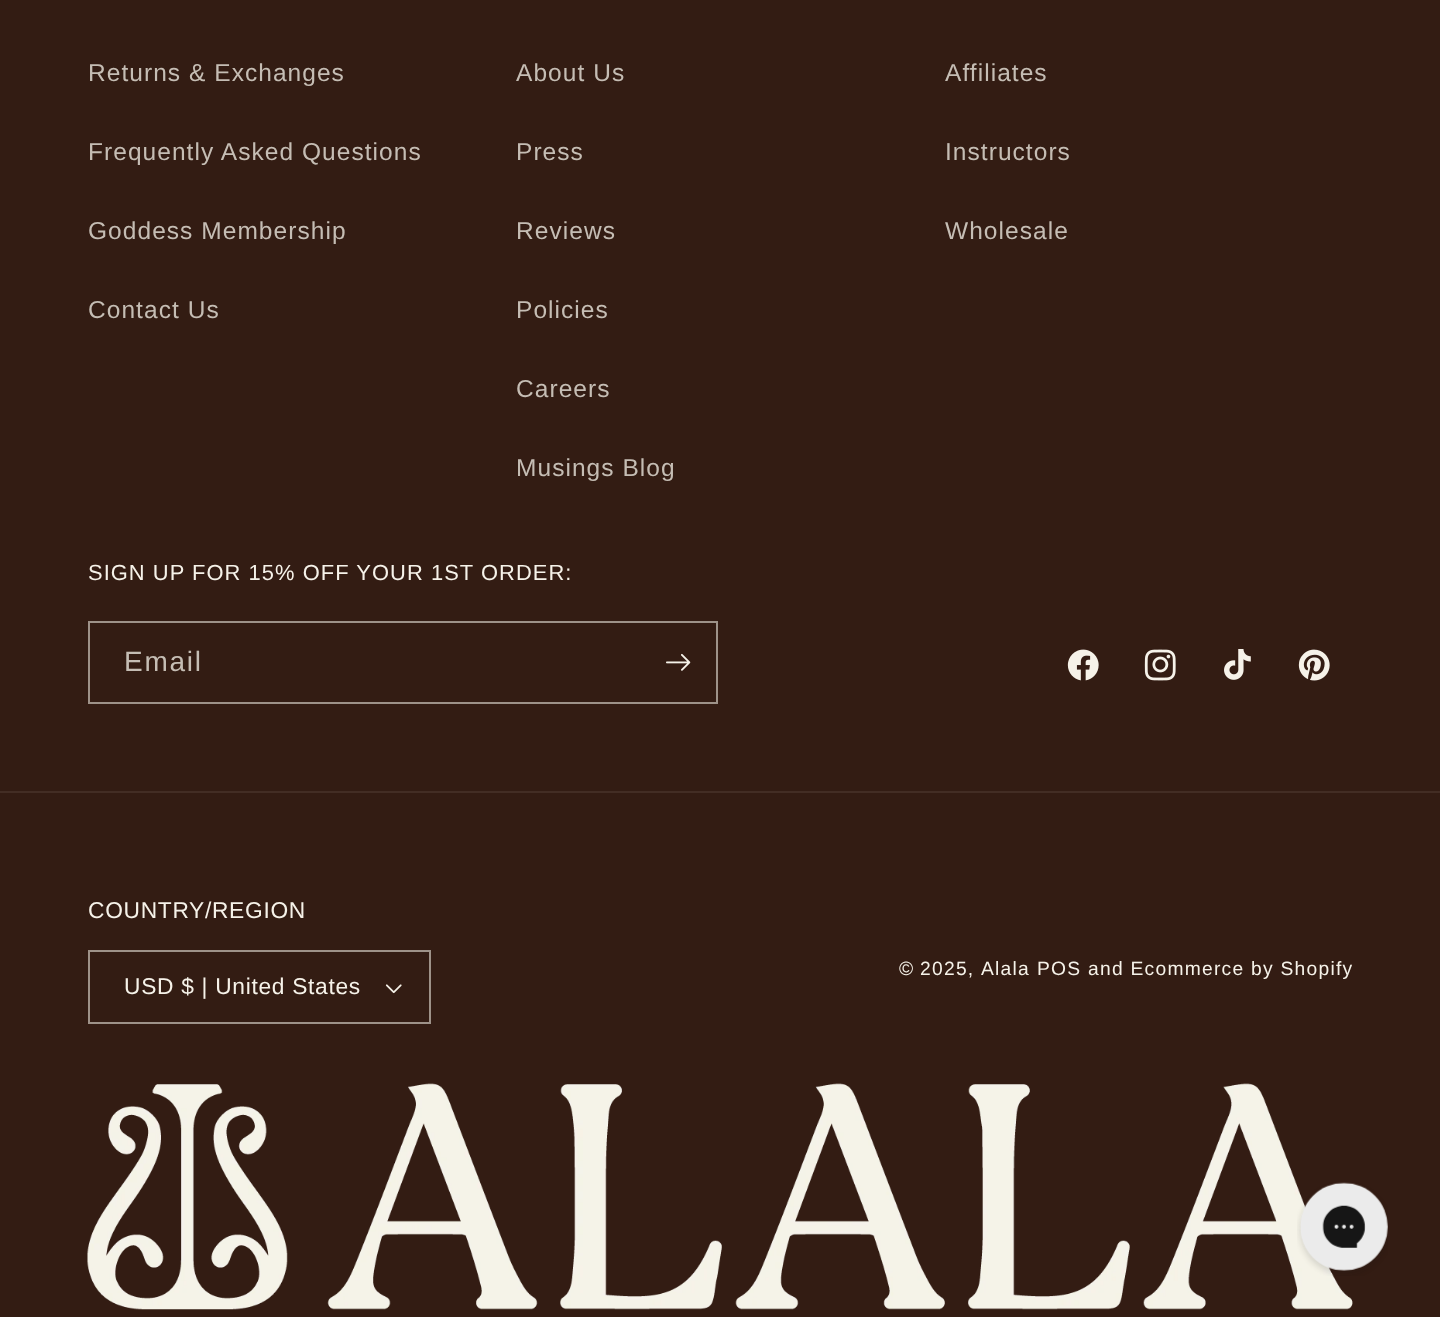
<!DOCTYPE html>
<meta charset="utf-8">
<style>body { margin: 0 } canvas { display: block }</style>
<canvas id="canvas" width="1440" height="1317"></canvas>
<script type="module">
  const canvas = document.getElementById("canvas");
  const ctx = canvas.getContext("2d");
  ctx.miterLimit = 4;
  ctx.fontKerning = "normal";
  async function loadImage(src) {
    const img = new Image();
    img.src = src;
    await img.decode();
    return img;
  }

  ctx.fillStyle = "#331c13";
  ctx.fillRect(0, 0, 1440, 1317);
  ctx.letterSpacing = "1.05px";
  ctx.font = "24.5px Liberation Sans";
  ctx.fillStyle = "#c5bdb4";
  ctx.fillText("Returns & Exchanges", 88, 81);
  ctx.fillText("Frequently Asked Questions", 88, 160);
  ctx.fillText("Goddess Membership", 88, 239);
  ctx.fillText("Contact Us", 88, 318);
  ctx.fillText("About Us", 516, 81);
  ctx.fillText("Press", 516, 160);
  ctx.fillText("Reviews", 516, 239);
  ctx.fillText("Policies", 516, 318);
  ctx.fillText("Careers", 516, 397);
  ctx.fillText("Musings Blog", 516, 476);
  ctx.fillText("Affiliates", 945, 81);
  ctx.fillText("Instructors", 945, 160);
  ctx.fillText("Wholesale", 945, 239);
  ctx.font = "21.9px Liberation Sans";
  ctx.fillStyle = "#f6f2e9";
  ctx.fillText("SIGN UP FOR 15% OFF YOUR 1ST ORDER:", 88, 580);
  ctx.strokeStyle = "#9e9289";
  ctx.lineWidth = 2;
  ctx.strokeRect(89, 622, 628, 81);
  ctx.letterSpacing = "1.75px";
  ctx.font = "28px Liberation Sans";
  ctx.fillStyle = "#c5bdb4";
  ctx.fillText("Email", 124, 671);
  ctx.drawImage(await loadImage("img1.png"), 666, 653, 25, 18);
  ctx.drawImage(await loadImage("img2.png"), 1067, 649, 32, 32);
  ctx.drawImage(await loadImage("img3.png"), 1144, 649, 32, 32);
  ctx.drawImage(await loadImage("img4.png"), 1224, 649, 27, 31);
  ctx.drawImage(await loadImage("img5.png"), 1298, 649, 32, 32);
  ctx.fillStyle = "#432d24";
  ctx.fillRect(0, 791, 1440, 2);
  ctx.letterSpacing = "0.7px";
  ctx.font = "22.75px Liberation Sans";
  ctx.fillStyle = "#f6f2e9";
  ctx.fillText("COUNTRY/REGION", 88, 918);
  ctx.drawImage(await loadImage("img6.png"), 385, 984, 17, 10);
  ctx.strokeRect(89, 951, 341, 72);
  ctx.fillText("USD $ | United States", 124, 994);
  ctx.letterSpacing = "1.25px";
  ctx.wordSpacing = "-1px";
  ctx.font = "19.25px Liberation Sans";
  ctx.fillText("© 2025,", 899, 975);
  ctx.wordSpacing = "0px";
  ctx.fillText("Alala", 981, 975);
  ctx.fillText("POS and Ecommerce by Shopify", 1037, 975);
  ctx.drawImage(await loadImage("img7.png"), 87, 1083, 1266, 227);
  ctx.drawImage(await loadImage("img8.png"), 1297, 1182, 91, 94);
</script>
